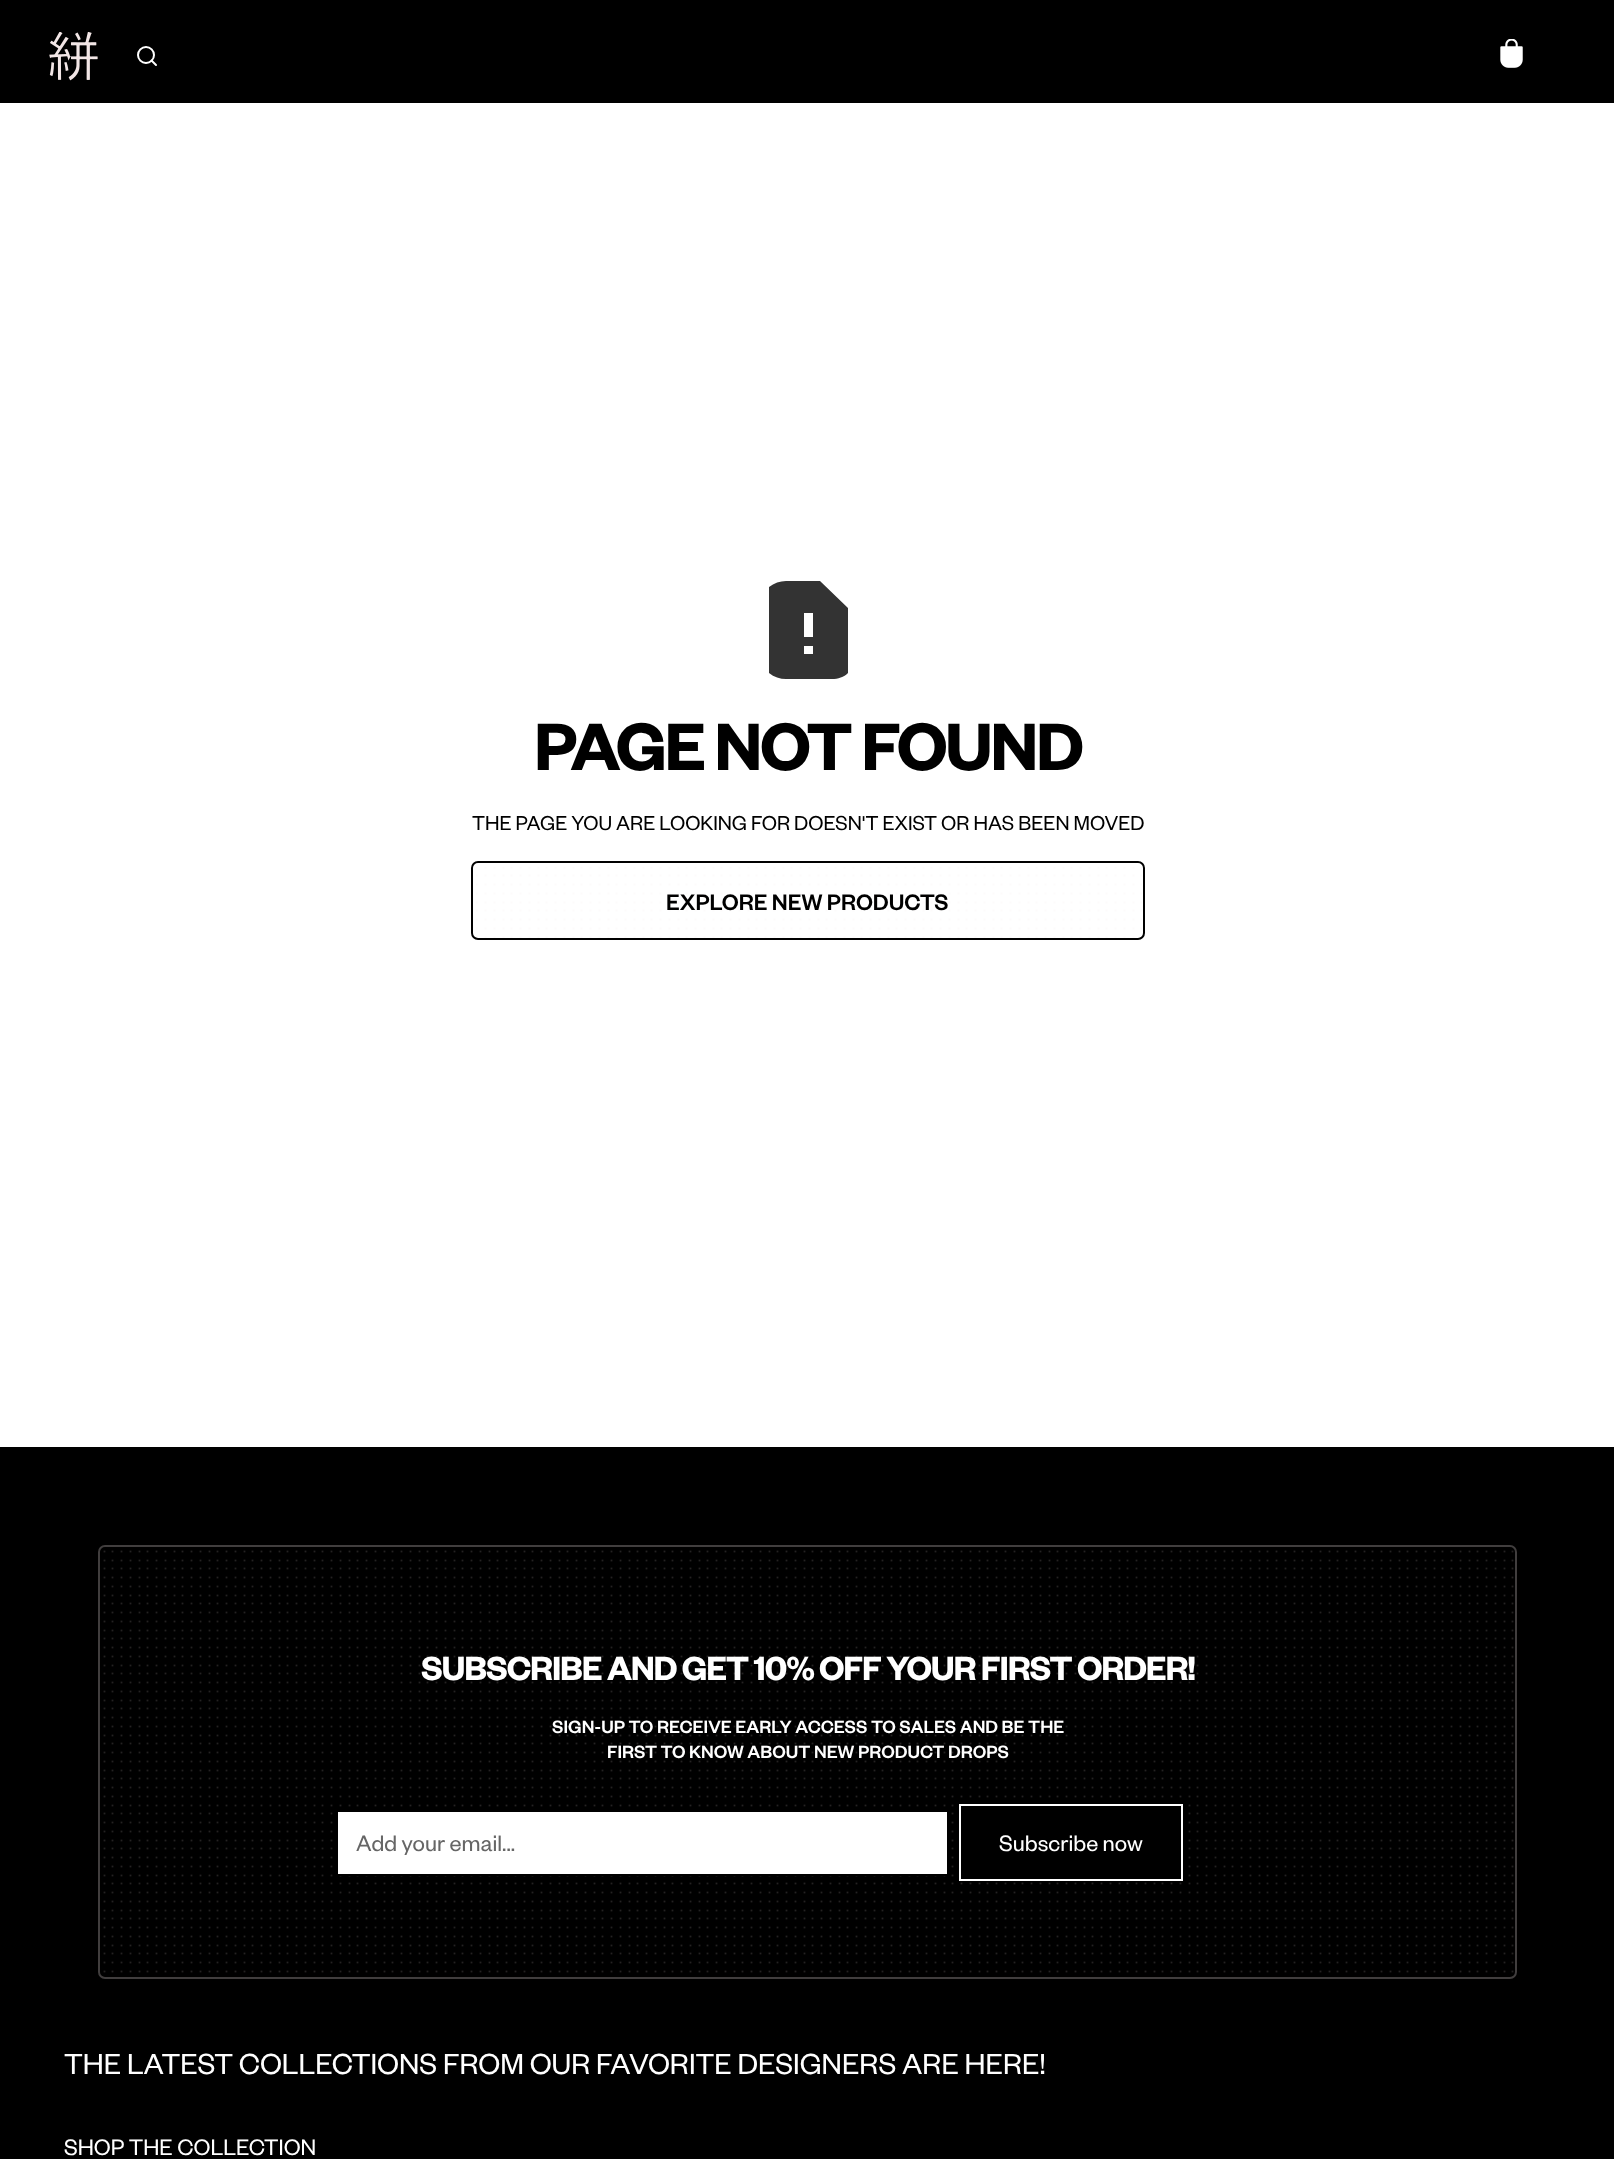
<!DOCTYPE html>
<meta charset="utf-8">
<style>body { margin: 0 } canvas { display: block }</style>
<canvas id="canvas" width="1614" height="2159"></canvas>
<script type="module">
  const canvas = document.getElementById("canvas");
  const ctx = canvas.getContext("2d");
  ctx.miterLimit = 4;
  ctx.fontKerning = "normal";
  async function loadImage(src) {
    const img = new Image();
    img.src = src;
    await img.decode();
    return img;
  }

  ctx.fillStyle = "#000000";
  ctx.fillRect(0, 0, 1614, 2159);
  ctx.drawImage(await loadImage("img1.png"), 49, 32, 49, 49);
  ctx.beginPath();
  ctx.arc(146, 55, 8, 0, Math.PI * 2);
  ctx.strokeStyle = "#ffffff";
  ctx.lineWidth = 2;
  ctx.stroke();
  ctx.beginPath();
  ctx.moveTo(156, 65);
  ctx.lineTo(151.5, 60.5);
  ctx.lineCap = "round";
  ctx.lineJoin = "round";
  ctx.stroke();
  ctx.drawImage(await loadImage("img2.png"), 1500, 39, 23, 29);
  ctx.fillStyle = "#ffffff";
  ctx.fillRect(0, 103, 1614, 1344);
  ctx.fillStyle = "#333333";
  ctx.beginPath();
  ctx.moveTo(786, 581);
  ctx.bezierCurveTo(780, 581, 774, 583, 769, 587);
  ctx.lineTo(769, 673);
  ctx.bezierCurveTo(774, 677, 780, 679, 786, 679);
  ctx.lineTo(832, 679);
  ctx.bezierCurveTo(838, 679, 844, 677, 848, 673);
  ctx.lineTo(848, 608);
  ctx.lineTo(820, 581);
  ctx.closePath();
  ctx.moveTo(804, 613);
  ctx.lineTo(804, 637);
  ctx.lineTo(813, 637);
  ctx.lineTo(813, 613);
  ctx.closePath();
  ctx.moveTo(804, 646);
  ctx.lineTo(804, 654);
  ctx.lineTo(813, 654);
  ctx.lineTo(813, 646);
  ctx.closePath();
  ctx.fill("evenodd");
  ctx.letterSpacing = "-2.5px";
  ctx.font = "600 73.5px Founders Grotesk";
  ctx.fillStyle = "#000000";
  ctx.fillText("PAGE NOT FOUND", 534, 770);
  ctx.letterSpacing = "0px";
  ctx.font = "22.05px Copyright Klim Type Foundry";
  ctx.fillText("THE PAGE YOU ARE LOOKING FOR DOESN'T EXIST OR HAS BEEN MOVED", 472, 830);
  ctx.drawImage(await loadImage("img3.png"), 476, 867, 666, 71);
  ctx.beginPath();
  ctx.roundRect(472, 862, 672, 77, 6);
  ctx.strokeStyle = "#000000";
  ctx.lineJoin = "miter";
  ctx.stroke();
  ctx.font = "500 24.5px Founders Grotesk";
  ctx.fillText("EXPLORE NEW PRODUCTS", 666, 910);
  ctx.drawImage(await loadImage("img4.png"), 103, 1550, 1411, 423);
  ctx.beginPath();
  ctx.roundRect(99, 1546, 1417, 432, 6);
  ctx.strokeStyle = "#413e3e";
  ctx.stroke();
  ctx.letterSpacing = "-1.2px";
  ctx.font = "600 36.75px Founders Grotesk";
  ctx.fillStyle = "#ffffff";
  ctx.fillText("SUBSCRIBE AND GET 10% OFF YOUR FIRST ORDER!", 421, 1680);
  ctx.letterSpacing = "0px";
  ctx.font = "500 19.6px Founders Grotesk";
  ctx.fillText("SIGN-UP TO RECEIVE EARLY ACCESS TO SALES AND BE THE", 552, 1733);
  ctx.fillText("FIRST TO KNOW ABOUT NEW PRODUCT DROPS", 607, 1758);
  ctx.beginPath();
  ctx.rect(337, 1811, 611, 64);
  ctx.fill();
  ctx.strokeStyle = "#000000";
  ctx.stroke();
  ctx.font = "24.5px Copyright Klim Type Foundry";
  ctx.fillStyle = "#666666";
  ctx.fillText("Add your email...", 356, 1851);
  ctx.fillStyle = "#000000";
  ctx.fillRect(961, 1806, 220, 71);
  ctx.strokeStyle = "#ffffff";
  ctx.strokeRect(960, 1805, 222, 75);
  ctx.fillStyle = "#ffffff";
  ctx.fillText("Subscribe now", 999, 1851);
  ctx.font = "31.85px Copyright Klim Type Foundry";
  ctx.fillText("THE LATEST COLLECTIONS FROM OUR FAVORITE DESIGNERS ARE HERE!", 64, 2074);
  ctx.font = "24.5px Copyright Klim Type Foundry";
  ctx.fillText("SHOP THE COLLECTION", 64, 2155);
</script>
